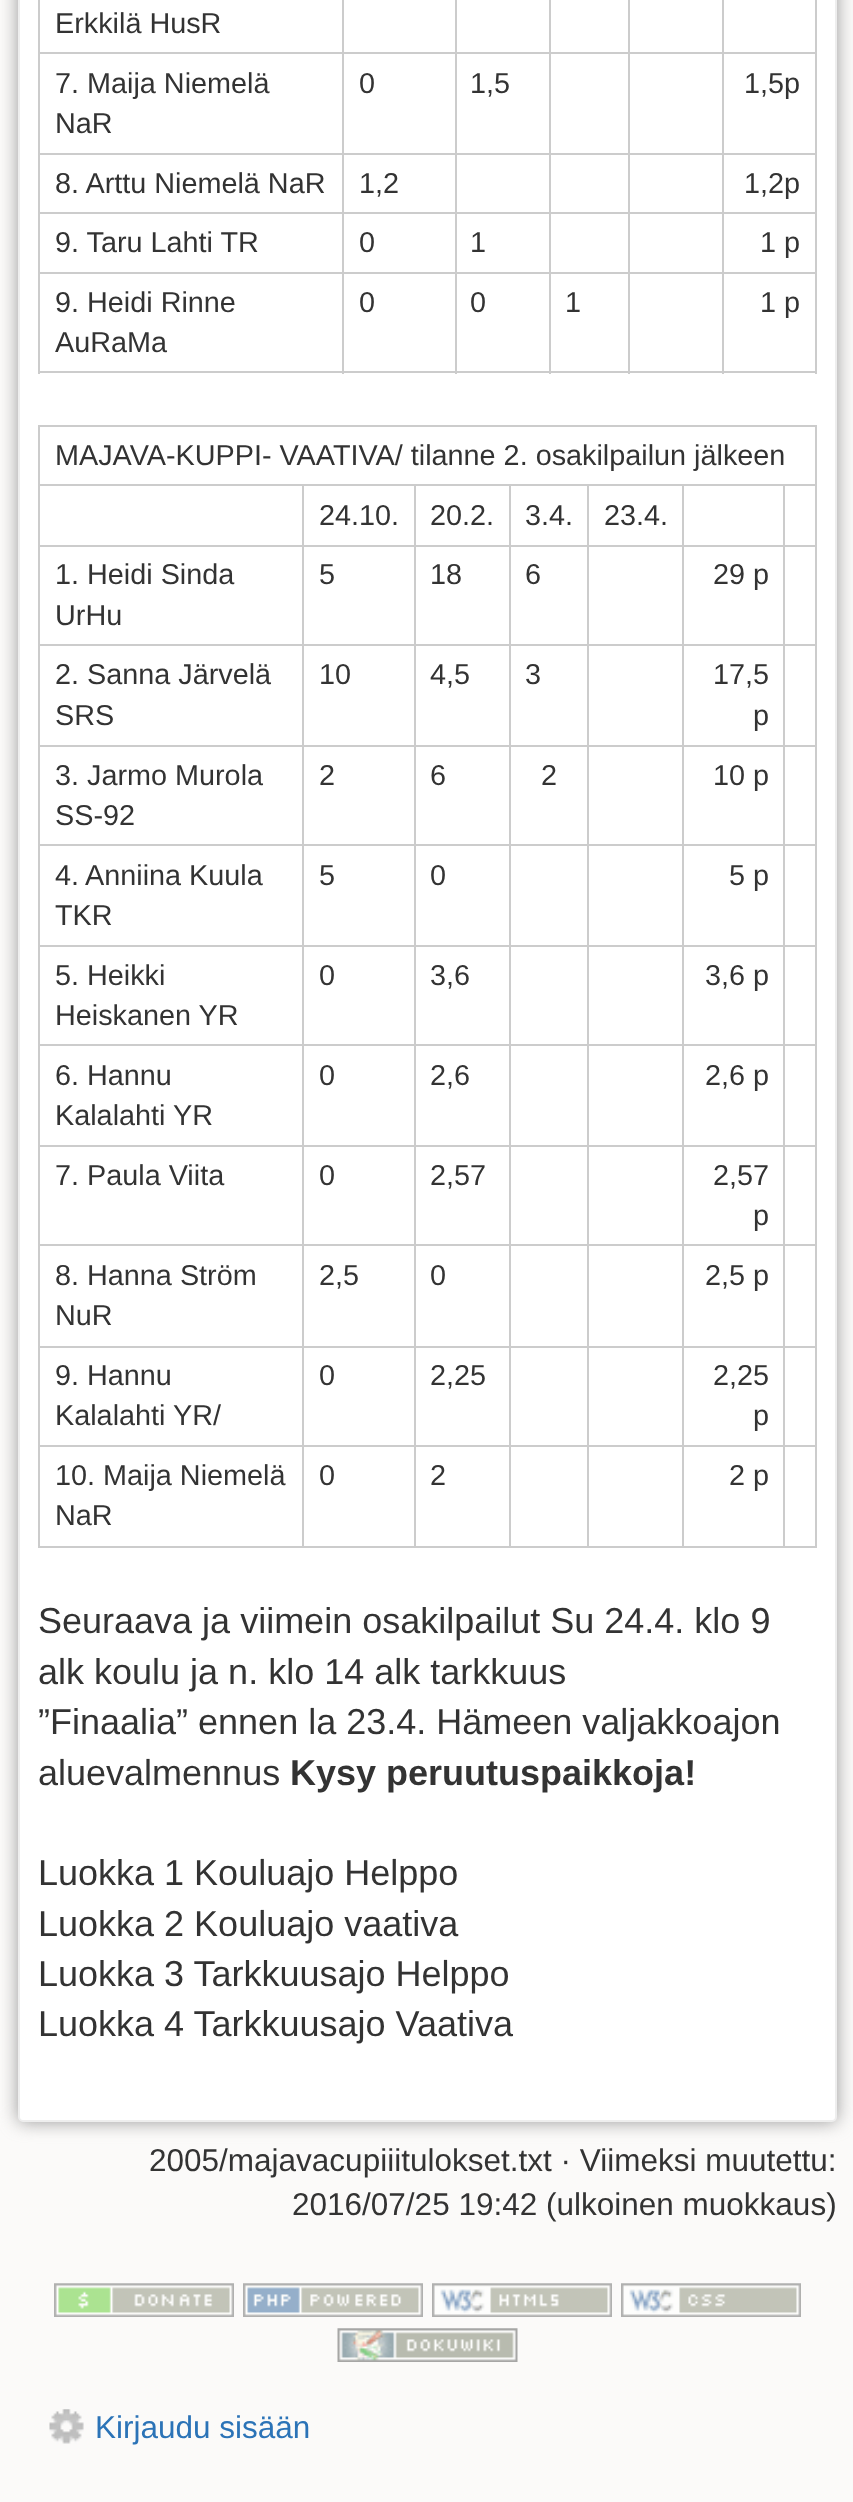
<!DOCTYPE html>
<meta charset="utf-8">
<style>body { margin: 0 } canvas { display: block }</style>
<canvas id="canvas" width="853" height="2502"></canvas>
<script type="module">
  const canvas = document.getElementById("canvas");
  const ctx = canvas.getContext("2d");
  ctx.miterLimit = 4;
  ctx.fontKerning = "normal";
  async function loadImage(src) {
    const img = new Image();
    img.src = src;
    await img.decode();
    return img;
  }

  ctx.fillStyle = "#fbfaf9";
  ctx.fillRect(0, 0, 853, 2502);
  ctx.fillStyle = "#999999";
  ctx.filter = "blur(9px)";
  ctx.beginPath();
  ctx.roundRect(18, -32, 819, 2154, 5);
  ctx.fill();
  ctx.filter = "none";
  ctx.fillStyle = "#ffffff";
  ctx.beginPath();
  ctx.roundRect(19, -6, 817, 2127, 4);
  ctx.fill();
  ctx.strokeStyle = "#eeeeee";
  ctx.lineWidth = 2;
  ctx.stroke();
  ctx.fillStyle = "#cccccc";
  ctx.fillRect(815, 0, 2, 374);
  ctx.fillRect(38, 371, 779, 2);
  ctx.fillRect(38, 0, 2, 374);
  ctx.font = "28.8px Liberation Sans";
  ctx.fillStyle = "#333333";
  ctx.fillText("Erkkilä HusR", 55, 33);
  ctx.fillStyle = "#cccccc";
  ctx.fillRect(722, 52, 95, 2);
  ctx.fillRect(722, 153, 95, 2);
  ctx.fillRect(722, 212, 95, 2);
  ctx.fillRect(722, 272, 95, 2);
  ctx.fillRect(722, 272, 2, 102);
  ctx.fillRect(628, 272, 97, 2);
  ctx.fillRect(722, 212, 2, 63);
  ctx.fillRect(628, 212, 97, 2);
  ctx.fillRect(722, 153, 2, 61);
  ctx.fillRect(628, 153, 97, 2);
  ctx.fillRect(722, 52, 2, 103);
  ctx.fillRect(628, 52, 97, 2);
  ctx.fillRect(628, 272, 2, 102);
  ctx.fillRect(549, 272, 81, 2);
  ctx.fillRect(628, 212, 2, 63);
  ctx.fillRect(549, 212, 81, 2);
  ctx.fillRect(628, 153, 2, 61);
  ctx.fillRect(549, 153, 81, 2);
  ctx.fillRect(628, 52, 2, 103);
  ctx.fillRect(549, 52, 81, 2);
  ctx.fillRect(549, 272, 2, 102);
  ctx.fillRect(455, 272, 96, 2);
  ctx.fillRect(549, 212, 2, 63);
  ctx.fillRect(455, 212, 96, 2);
  ctx.fillRect(549, 153, 2, 61);
  ctx.fillRect(455, 153, 96, 2);
  ctx.fillRect(549, 52, 2, 103);
  ctx.fillRect(455, 52, 96, 2);
  ctx.fillRect(455, 272, 2, 102);
  ctx.fillRect(342, 272, 115, 2);
  ctx.fillRect(455, 212, 2, 63);
  ctx.fillRect(342, 212, 115, 2);
  ctx.fillRect(455, 153, 2, 61);
  ctx.fillRect(342, 153, 115, 2);
  ctx.fillRect(455, 52, 2, 103);
  ctx.fillRect(342, 52, 115, 2);
  ctx.fillRect(342, 272, 2, 102);
  ctx.fillRect(38, 272, 306, 2);
  ctx.fillRect(342, 212, 2, 63);
  ctx.fillRect(38, 212, 306, 2);
  ctx.fillRect(342, 153, 2, 61);
  ctx.fillRect(38, 153, 306, 2);
  ctx.fillRect(342, 52, 2, 103);
  ctx.fillRect(38, 52, 306, 2);
  ctx.fillRect(342, 0, 2, 54);
  ctx.fillRect(455, 0, 2, 54);
  ctx.fillRect(549, 0, 2, 54);
  ctx.fillRect(628, 0, 2, 54);
  ctx.fillRect(722, 0, 2, 54);
  ctx.fillStyle = "#333333";
  ctx.fillText("7. Maija Niemelä", 55, 93);
  ctx.fillText("NaR", 55, 133);
  ctx.fillText("0", 359, 93);
  ctx.fillText("1,5", 470, 93);
  ctx.fillText("1,5p", 744, 93);
  ctx.fillText("8. Arttu Niemelä NaR", 55, 193);
  ctx.fillText("1,2", 359, 193);
  ctx.fillText("1,2p", 744, 193);
  ctx.fillText("9. Taru Lahti TR", 55, 252);
  ctx.fillText("0", 359, 252);
  ctx.fillText("1", 470, 252);
  ctx.fillText("1 p", 760, 252);
  ctx.fillText("9. Heidi Rinne", 55, 312);
  ctx.fillText("AuRaMa", 55, 352);
  ctx.fillText("0", 359, 312);
  ctx.fillText("0", 470, 312);
  ctx.fillText("1", 565, 312);
  ctx.fillText("1 p", 760, 312);
  ctx.fillStyle = "#cccccc";
  ctx.fillRect(38, 425, 779, 2);
  ctx.fillRect(815, 425, 2, 1123);
  ctx.fillRect(38, 1546, 779, 2);
  ctx.fillRect(38, 425, 2, 1123);
  ctx.fillStyle = "#333333";
  ctx.fillText("MAJAVA-KUPPI- VAATIVA/ tilanne 2. osakilpailun jälkeen", 55, 465);
  ctx.fillStyle = "#cccccc";
  ctx.fillRect(783, 484, 34, 2);
  ctx.fillRect(783, 545, 34, 2);
  ctx.fillRect(783, 644, 34, 2);
  ctx.fillRect(783, 745, 34, 2);
  ctx.fillRect(783, 844, 34, 2);
  ctx.fillRect(783, 945, 34, 2);
  ctx.fillRect(783, 1044, 34, 2);
  ctx.fillRect(783, 1145, 34, 2);
  ctx.fillRect(783, 1244, 34, 2);
  ctx.fillRect(783, 1346, 34, 2);
  ctx.fillRect(783, 1445, 34, 2);
  ctx.fillRect(783, 1445, 2, 103);
  ctx.fillRect(682, 1445, 103, 2);
  ctx.fillRect(783, 1346, 2, 101);
  ctx.fillRect(682, 1346, 103, 2);
  ctx.fillRect(783, 1244, 2, 104);
  ctx.fillRect(682, 1244, 103, 2);
  ctx.fillRect(783, 1145, 2, 102);
  ctx.fillRect(682, 1145, 103, 2);
  ctx.fillRect(783, 1044, 2, 104);
  ctx.fillRect(682, 1044, 103, 2);
  ctx.fillRect(783, 945, 2, 101);
  ctx.fillRect(682, 945, 103, 2);
  ctx.fillRect(783, 844, 2, 103);
  ctx.fillRect(682, 844, 103, 2);
  ctx.fillRect(783, 745, 2, 101);
  ctx.fillRect(682, 745, 103, 2);
  ctx.fillRect(783, 644, 2, 103);
  ctx.fillRect(682, 644, 103, 2);
  ctx.fillRect(783, 545, 2, 101);
  ctx.fillRect(682, 545, 103, 2);
  ctx.fillRect(783, 484, 2, 63);
  ctx.fillRect(682, 484, 103, 2);
  ctx.fillRect(682, 1445, 2, 103);
  ctx.fillRect(587, 1445, 97, 2);
  ctx.fillRect(682, 1346, 2, 101);
  ctx.fillRect(587, 1346, 97, 2);
  ctx.fillRect(682, 1244, 2, 104);
  ctx.fillRect(587, 1244, 97, 2);
  ctx.fillRect(682, 1145, 2, 102);
  ctx.fillRect(587, 1145, 97, 2);
  ctx.fillRect(682, 1044, 2, 104);
  ctx.fillRect(587, 1044, 97, 2);
  ctx.fillRect(682, 945, 2, 101);
  ctx.fillRect(587, 945, 97, 2);
  ctx.fillRect(682, 844, 2, 103);
  ctx.fillRect(587, 844, 97, 2);
  ctx.fillRect(682, 745, 2, 101);
  ctx.fillRect(587, 745, 97, 2);
  ctx.fillRect(682, 644, 2, 103);
  ctx.fillRect(587, 644, 97, 2);
  ctx.fillRect(682, 545, 2, 101);
  ctx.fillRect(587, 545, 97, 2);
  ctx.fillRect(682, 484, 2, 63);
  ctx.fillRect(587, 484, 97, 2);
  ctx.fillRect(587, 1445, 2, 103);
  ctx.fillRect(509, 1445, 81, 2);
  ctx.fillRect(587, 1346, 2, 101);
  ctx.fillRect(509, 1346, 81, 2);
  ctx.fillRect(587, 1244, 2, 104);
  ctx.fillRect(509, 1244, 81, 2);
  ctx.fillRect(587, 1145, 2, 102);
  ctx.fillRect(509, 1145, 81, 2);
  ctx.fillRect(587, 1044, 2, 104);
  ctx.fillRect(509, 1044, 81, 2);
  ctx.fillRect(587, 945, 2, 101);
  ctx.fillRect(509, 945, 81, 2);
  ctx.fillRect(587, 844, 2, 103);
  ctx.fillRect(509, 844, 81, 2);
  ctx.fillRect(587, 745, 2, 101);
  ctx.fillRect(509, 745, 81, 2);
  ctx.fillRect(587, 644, 2, 103);
  ctx.fillRect(509, 644, 81, 2);
  ctx.fillRect(587, 545, 2, 101);
  ctx.fillRect(509, 545, 81, 2);
  ctx.fillRect(587, 484, 2, 63);
  ctx.fillRect(509, 484, 81, 2);
  ctx.fillRect(509, 1445, 2, 103);
  ctx.fillRect(414, 1445, 97, 2);
  ctx.fillRect(509, 1346, 2, 101);
  ctx.fillRect(414, 1346, 97, 2);
  ctx.fillRect(509, 1244, 2, 104);
  ctx.fillRect(414, 1244, 97, 2);
  ctx.fillRect(509, 1145, 2, 102);
  ctx.fillRect(414, 1145, 97, 2);
  ctx.fillRect(509, 1044, 2, 104);
  ctx.fillRect(414, 1044, 97, 2);
  ctx.fillRect(509, 945, 2, 101);
  ctx.fillRect(414, 945, 97, 2);
  ctx.fillRect(509, 844, 2, 103);
  ctx.fillRect(414, 844, 97, 2);
  ctx.fillRect(509, 745, 2, 101);
  ctx.fillRect(414, 745, 97, 2);
  ctx.fillRect(509, 644, 2, 103);
  ctx.fillRect(414, 644, 97, 2);
  ctx.fillRect(509, 545, 2, 101);
  ctx.fillRect(414, 545, 97, 2);
  ctx.fillRect(509, 484, 2, 63);
  ctx.fillRect(414, 484, 97, 2);
  ctx.fillRect(414, 1445, 2, 103);
  ctx.fillRect(302, 1445, 114, 2);
  ctx.fillRect(414, 1346, 2, 101);
  ctx.fillRect(302, 1346, 114, 2);
  ctx.fillRect(414, 1244, 2, 104);
  ctx.fillRect(302, 1244, 114, 2);
  ctx.fillRect(414, 1145, 2, 102);
  ctx.fillRect(302, 1145, 114, 2);
  ctx.fillRect(414, 1044, 2, 104);
  ctx.fillRect(302, 1044, 114, 2);
  ctx.fillRect(414, 945, 2, 101);
  ctx.fillRect(302, 945, 114, 2);
  ctx.fillRect(414, 844, 2, 103);
  ctx.fillRect(302, 844, 114, 2);
  ctx.fillRect(414, 745, 2, 101);
  ctx.fillRect(302, 745, 114, 2);
  ctx.fillRect(414, 644, 2, 103);
  ctx.fillRect(302, 644, 114, 2);
  ctx.fillRect(414, 545, 2, 101);
  ctx.fillRect(302, 545, 114, 2);
  ctx.fillRect(414, 484, 2, 63);
  ctx.fillRect(302, 484, 114, 2);
  ctx.fillRect(302, 1445, 2, 103);
  ctx.fillRect(38, 1445, 266, 2);
  ctx.fillRect(302, 1346, 2, 101);
  ctx.fillRect(38, 1346, 266, 2);
  ctx.fillRect(302, 1244, 2, 104);
  ctx.fillRect(38, 1244, 266, 2);
  ctx.fillRect(302, 1145, 2, 102);
  ctx.fillRect(38, 1145, 266, 2);
  ctx.fillRect(302, 1044, 2, 104);
  ctx.fillRect(38, 1044, 266, 2);
  ctx.fillRect(302, 945, 2, 101);
  ctx.fillRect(38, 945, 266, 2);
  ctx.fillRect(302, 844, 2, 103);
  ctx.fillRect(38, 844, 266, 2);
  ctx.fillRect(302, 745, 2, 101);
  ctx.fillRect(38, 745, 266, 2);
  ctx.fillRect(302, 644, 2, 103);
  ctx.fillRect(38, 644, 266, 2);
  ctx.fillRect(302, 545, 2, 101);
  ctx.fillRect(38, 545, 266, 2);
  ctx.fillRect(302, 484, 2, 63);
  ctx.fillRect(38, 484, 266, 2);
  ctx.fillStyle = "#333333";
  ctx.fillText("24.10.", 319, 525);
  ctx.fillText("20.2.", 430, 525);
  ctx.fillText("3.4.", 525, 525);
  ctx.fillText("23.4.", 604, 525);
  ctx.fillText("1. Heidi Sinda", 55, 584);
  ctx.fillText("UrHu", 55, 625);
  ctx.fillText("5", 319, 584);
  ctx.fillText("18", 430, 584);
  ctx.fillText("6", 525, 584);
  ctx.fillText("29 p", 713, 584);
  ctx.fillText("2. Sanna Järvelä", 55, 684);
  ctx.fillText("SRS", 55, 725);
  ctx.fillText("10", 319, 684);
  ctx.fillText("4,5", 430, 684);
  ctx.fillText("3", 525, 684);
  ctx.fillText("17,5", 713, 684);
  ctx.fillText("p", 753, 725);
  ctx.fillText("3. Jarmo Murola", 55, 785);
  ctx.fillText("SS-92", 55, 825);
  ctx.fillText("2", 319, 785);
  ctx.fillText("6", 430, 785);
  ctx.fillText("2", 541, 785);
  ctx.fillText("10 p", 713, 785);
  ctx.fillText("4.", 55, 885);
  ctx.fillText("Anniina Kuula", 85, 885);
  ctx.fillText("TKR", 55, 925);
  ctx.fillText("5", 319, 885);
  ctx.fillText("0", 430, 885);
  ctx.fillText("5 p", 729, 885);
  ctx.fillText("5. Heikki", 55, 985);
  ctx.fillText("Heiskanen YR", 55, 1025);
  ctx.fillText("0", 319, 985);
  ctx.fillText("3,6", 430, 985);
  ctx.fillText("3,6 p", 705, 985);
  ctx.fillText("6. Hannu", 55, 1085);
  ctx.fillText("Kalalahti YR", 55, 1125);
  ctx.fillText("0", 319, 1085);
  ctx.fillText("2,6", 430, 1085);
  ctx.fillText("2,6 p", 705, 1085);
  ctx.fillText("7. Paula Viita", 55, 1185);
  ctx.fillText("0", 319, 1185);
  ctx.fillText("2,57", 430, 1185);
  ctx.fillText("2,57", 713, 1185);
  ctx.fillText("p", 753, 1225);
  ctx.fillText("8. Hanna Ström", 55, 1285);
  ctx.fillText("NuR", 55, 1325);
  ctx.fillText("2,5", 319, 1285);
  ctx.fillText("0", 430, 1285);
  ctx.fillText("2,5 p", 705, 1285);
  ctx.fillText("9. Hannu", 55, 1385);
  ctx.fillText("Kalalahti YR/", 55, 1425);
  ctx.fillText("0", 319, 1385);
  ctx.fillText("2,25", 430, 1385);
  ctx.fillText("2,25", 713, 1385);
  ctx.fillText("p", 753, 1425);
  ctx.fillText("10. Maija Niemelä", 55, 1485);
  ctx.fillText("NaR", 55, 1525);
  ctx.fillText("0", 319, 1485);
  ctx.fillText("2", 430, 1485);
  ctx.fillText("2 p", 729, 1485);
  ctx.font = "36px Liberation Sans";
  ctx.fillText("Seuraava ja viimein osakilpailut Su 24.4. klo 9", 38, 1633);
  ctx.fillText("alk koulu ja n. klo 14 alk tarkkuus", 38, 1684);
  ctx.fillText("”Finaalia” ennen la 23.4. Hämeen valjakkoajon", 38, 1734);
  ctx.fillText("aluevalmennus", 38, 1785);
  ctx.font = "bold 36px Liberation Sans";
  ctx.fillText("Kysy peruutuspaikkoja!", 290, 1785);
  ctx.font = "36px Liberation Sans";
  ctx.fillText("Luokka 1 Kouluajo Helppo", 38, 1885);
  ctx.fillText("Luokka 2 Kouluajo vaativa", 38, 1936);
  ctx.fillText("Luokka 3 Tarkkuusajo Helppo", 38, 1986);
  ctx.fillText("Luokka 4 Tarkkuusajo Vaativa", 38, 2036);
  ctx.font = "31.5px Liberation Sans";
  ctx.fillText("2005/majavacupiiitulokset.txt · Viimeksi muutettu:", 149, 2171);
  ctx.fillText("2016/07/25 19:42 (ulkoinen muokkaus)", 292, 2215);
  ctx.drawImage(await loadImage("img1.png"), 54, 2283, 180, 34);
  ctx.drawImage(await loadImage("img2.png"), 243, 2283, 180, 34);
  ctx.drawImage(await loadImage("img3.png"), 432, 2283, 180, 34);
  ctx.drawImage(await loadImage("img4.png"), 621, 2283, 180, 34);
  ctx.drawImage(await loadImage("img5.png"), 337, 2328, 181, 34);
  ctx.drawImage(await loadImage("img6.png"), 49, 2409, 35, 35);
  ctx.fillStyle = "#2b73b7";
  ctx.fillText("Kirjaudu sisään", 95, 2438);
</script>
